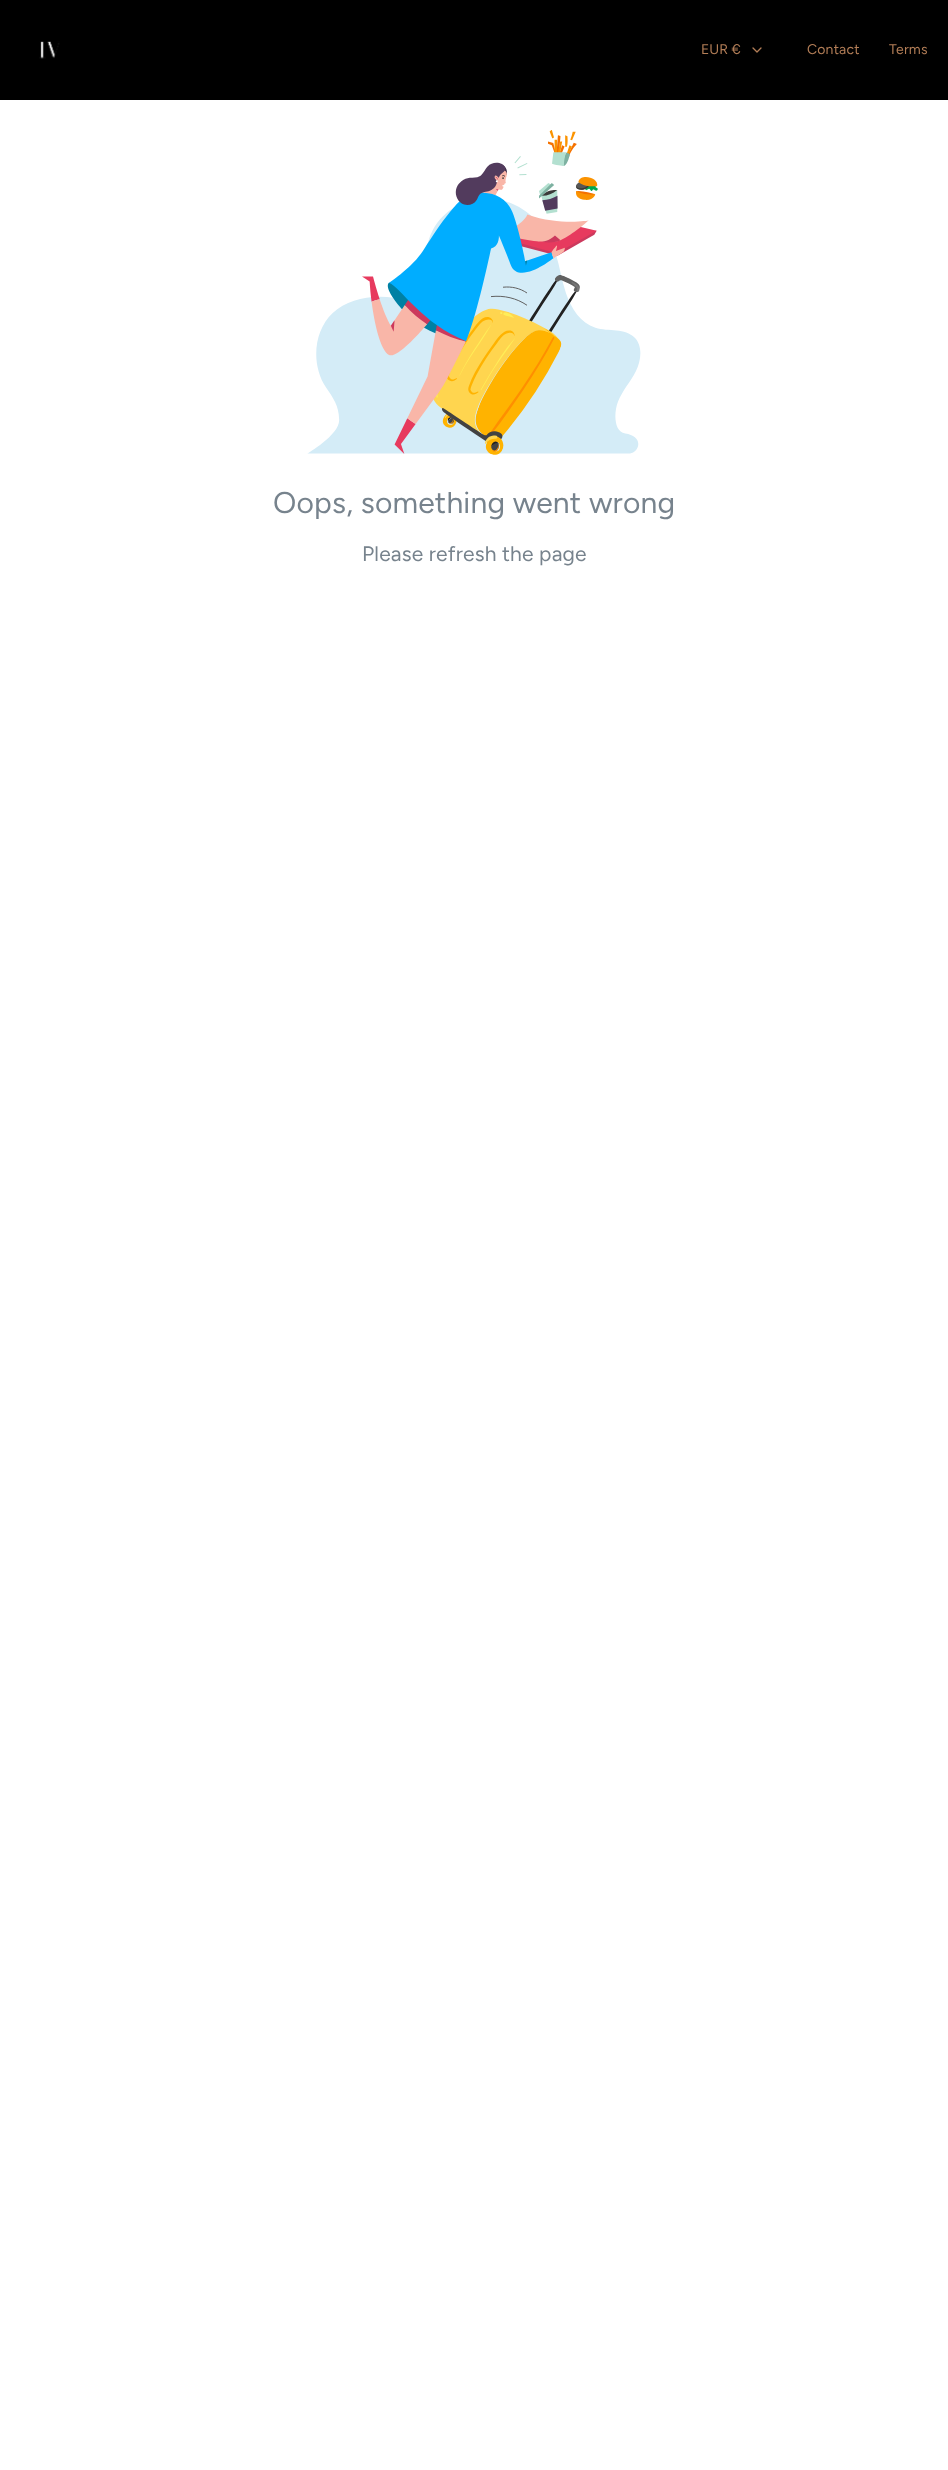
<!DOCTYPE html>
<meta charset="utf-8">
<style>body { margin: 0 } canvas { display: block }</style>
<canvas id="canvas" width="948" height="2470"></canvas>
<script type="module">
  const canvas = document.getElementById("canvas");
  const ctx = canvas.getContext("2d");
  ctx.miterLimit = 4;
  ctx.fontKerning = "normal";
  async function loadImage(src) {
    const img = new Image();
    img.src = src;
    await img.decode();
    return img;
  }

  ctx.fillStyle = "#ffffff";
  ctx.fillRect(0, 0, 948, 2470);
  ctx.fillStyle = "#000000";
  ctx.fillRect(0, 0, 948, 100);
  ctx.drawImage(await loadImage("img1.png"), 39, 41, 21, 18);
  ctx.font = "14px Figtree";
  ctx.fillStyle = "#b37e57";
  ctx.fillText("EUR €", 701, 54);
  ctx.beginPath();
  ctx.moveTo(753, 48);
  ctx.lineTo(757, 52);
  ctx.lineTo(761, 48);
  ctx.strokeStyle = "#b37e57";
  ctx.lineWidth = 1.3;
  ctx.lineCap = "round";
  ctx.lineJoin = "round";
  ctx.stroke();
  ctx.letterSpacing = "0.2px";
  ctx.fillText("Contact", 807, 54);
  ctx.fillText("Terms", 889, 54);
  ctx.drawImage(await loadImage("img2.png"), 307, 130, 334, 325);
  ctx.font = "30px Figtree";
  ctx.fillStyle = "#77838d";
  ctx.fillText("Oops, something went wrong", 273, 513);
  ctx.font = "21px Figtree";
  ctx.fillText("Please refresh the page", 362, 561);
</script>
